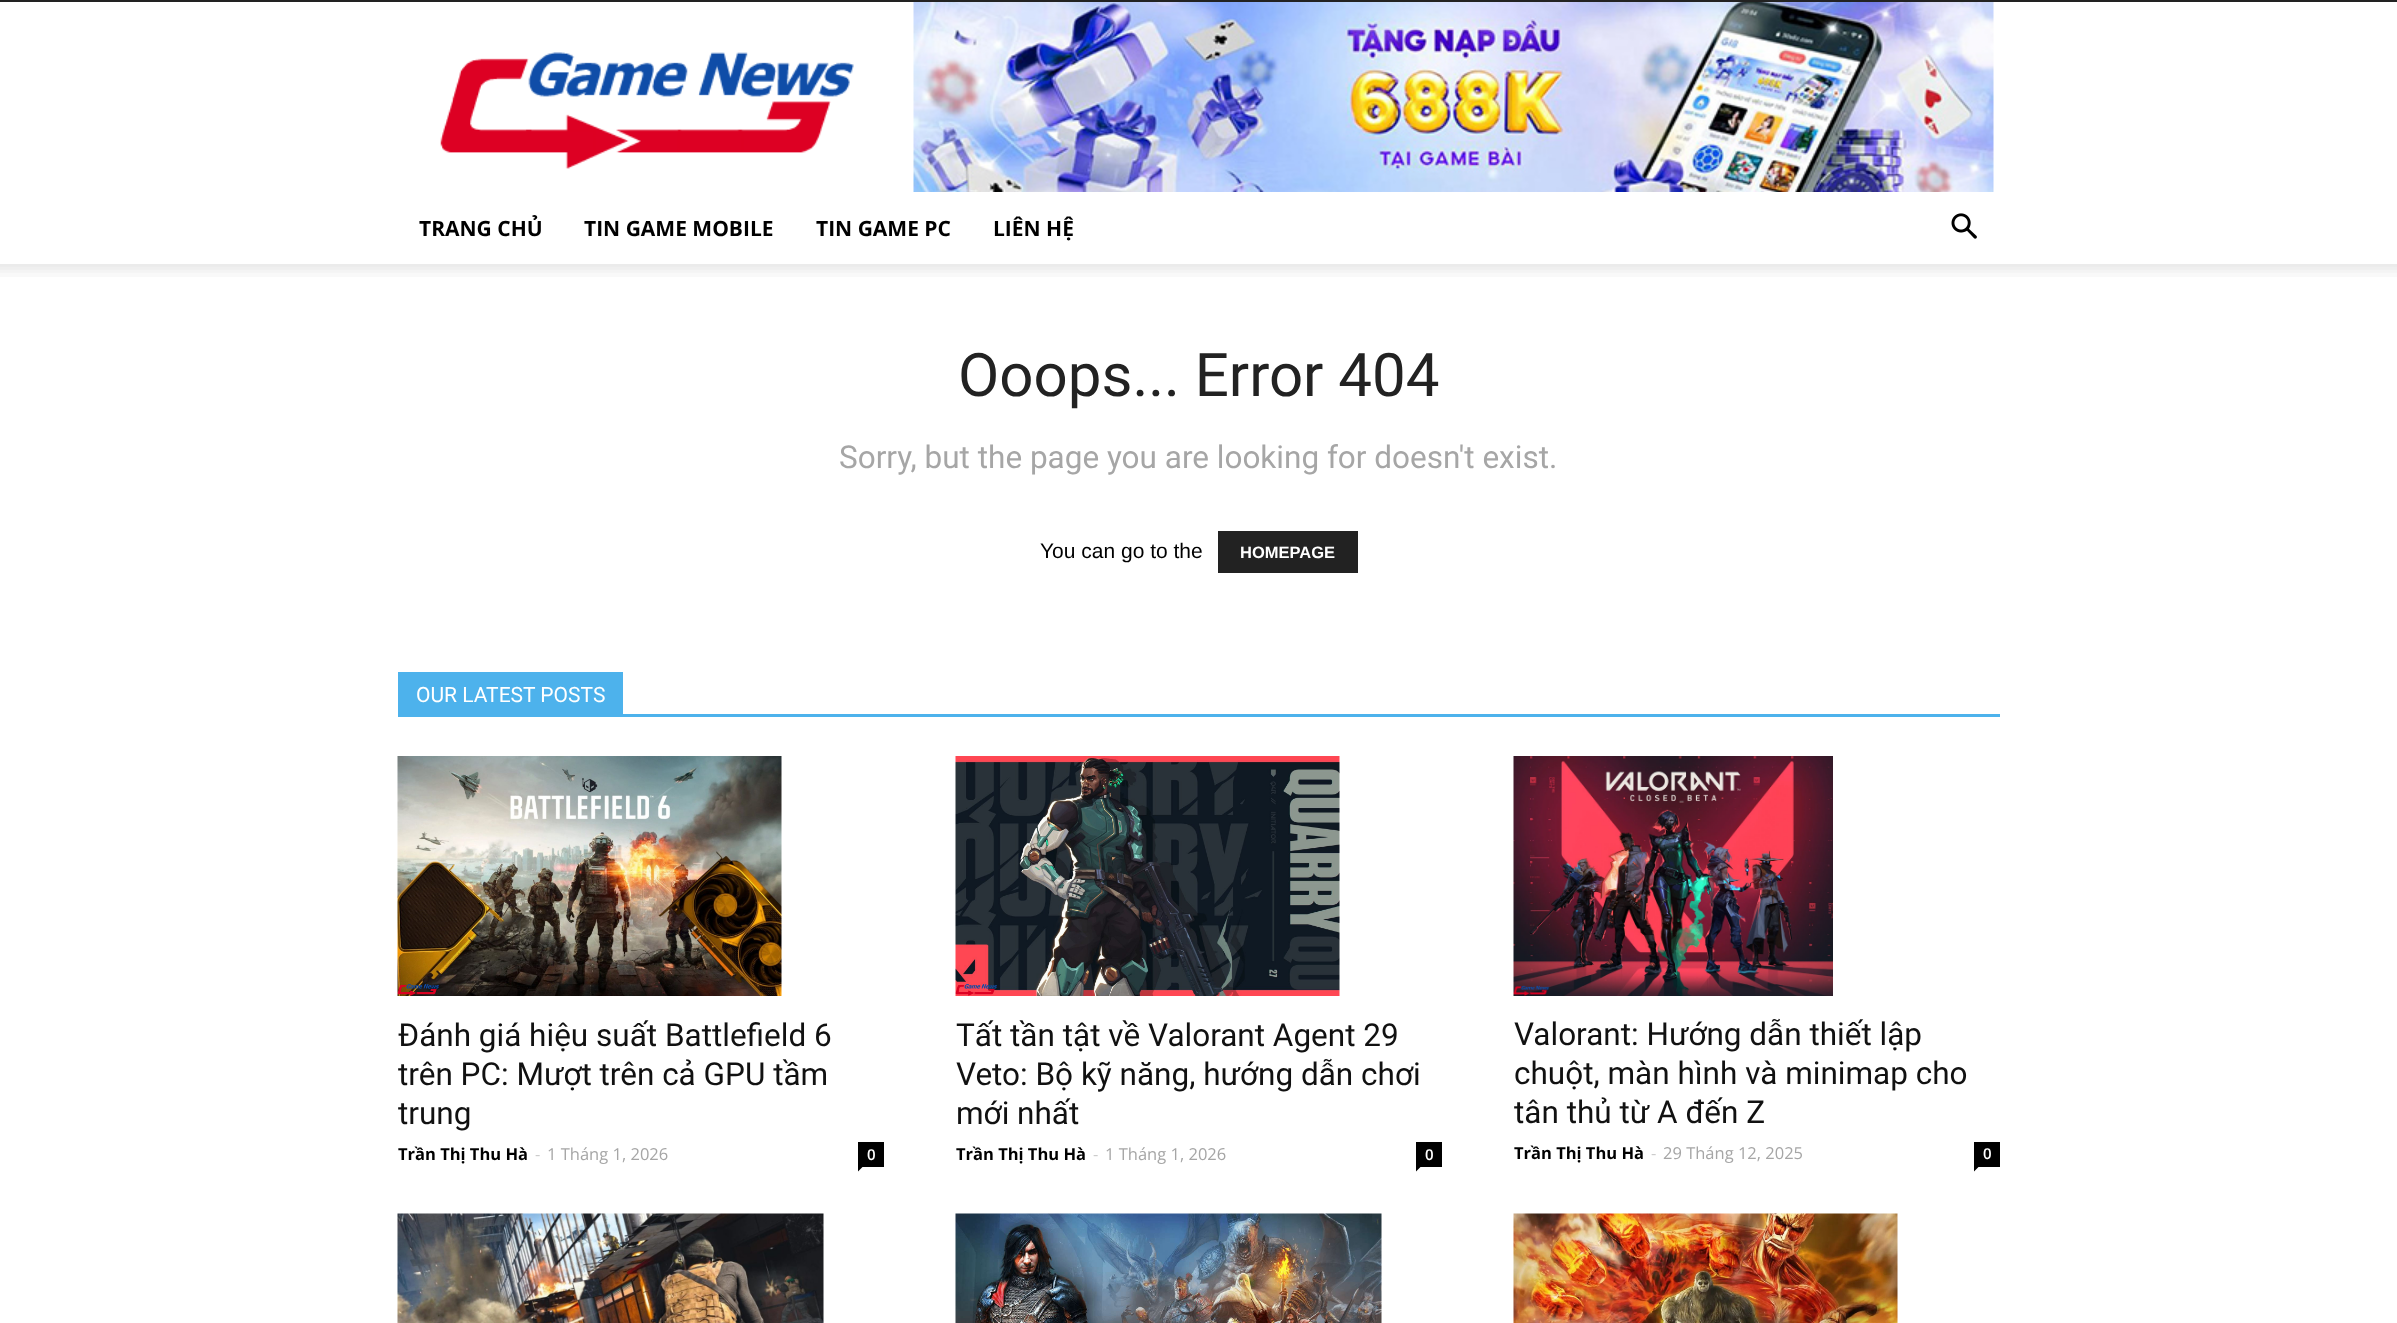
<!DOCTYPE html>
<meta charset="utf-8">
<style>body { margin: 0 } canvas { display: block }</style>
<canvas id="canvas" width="2397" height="1323"></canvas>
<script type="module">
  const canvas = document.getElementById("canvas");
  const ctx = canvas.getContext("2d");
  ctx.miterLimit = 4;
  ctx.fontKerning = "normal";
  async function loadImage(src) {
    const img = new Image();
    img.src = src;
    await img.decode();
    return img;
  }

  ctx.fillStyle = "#ffffff";
  ctx.fillRect(0, 0, 2397, 1323);
  ctx.fillStyle = "#222222";
  ctx.fillRect(0, 0, 2397, 2);
  ctx.drawImage(await loadImage("img1.png"), 440, 52, 414, 117);
  ctx.drawImage(await loadImage("img2.png"), 913, 2, 1081, 190);
  ctx.font = "bold 21px Open Sans";
  ctx.fillStyle = "#000000";
  ctx.fillText("TRANG CHỦ", 419, 236);
  ctx.fillText("TIN GAME MOBILE", 584, 236);
  ctx.fillText("TIN GAME PC", 816, 236);
  ctx.fillText("LIÊN HỆ", 993, 236);
  ctx.drawImage(await loadImage("img3.png"), 1951, 213, 26, 26);
  ctx.drawImage(await loadImage("img4.png"), 0, 264, 2397, 13);
  ctx.font = "60px Roboto";
  ctx.fillStyle = "#222222";
  ctx.fillText("Ooops... Error 404", 958, 396);
  ctx.font = "31.5px Roboto";
  ctx.fillStyle = "#a6a6a6";
  ctx.fillText("Sorry, but the page you are looking for doesn't exist.", 839, 468);
  ctx.font = "21px Liberation Sans";
  ctx.fillStyle = "#000000";
  ctx.fillText("You can go to the", 1040, 558);
  ctx.fillStyle = "#222222";
  ctx.fillRect(1218, 531, 140, 42);
  ctx.font = "bold 16.5px Liberation Sans";
  ctx.fillStyle = "#ffffff";
  ctx.fillText("HOMEPAGE", 1240, 558);
  ctx.fillStyle = "#4db2ec";
  ctx.fillRect(398, 714, 1602, 3);
  ctx.fillRect(398, 672, 225, 42);
  ctx.font = "21px Roboto";
  ctx.fillStyle = "#ffffff";
  ctx.fillText("OUR LATEST POSTS", 416, 702);
  ctx.drawImage(await loadImage("img5.png"), 397, 756, 385, 240);
  ctx.font = "31.5px Roboto";
  ctx.fillStyle = "#111111";
  ctx.fillText("Đánh giá hiệu suất Battlefield 6", 398, 1046);
  ctx.fillText("trên PC: Mượt trên cả GPU tầm", 398, 1085);
  ctx.fillText("trung", 398, 1124);
  ctx.font = "bold 16.5px Open Sans";
  ctx.fillStyle = "#000000";
  ctx.fillText("Trần Thị Thu Hà", 398, 1160);
  ctx.font = "16.5px Open Sans";
  ctx.fillStyle = "#cccccc";
  ctx.fillText("-", 535, 1160);
  ctx.fillStyle = "#a6a6a6";
  ctx.fillText("1 Tháng 1, 2026", 547, 1160);
  ctx.fillStyle = "#000000";
  ctx.fillRect(858, 1142, 26, 25);
  ctx.font = "600 15px Open Sans";
  ctx.fillStyle = "#ffffff";
  ctx.fillText("0", 867, 1160);
  ctx.fillStyle = "#000000";
  ctx.beginPath();
  ctx.moveTo(858, 1167);
  ctx.lineTo(862.5, 1167);
  ctx.lineTo(858, 1171.5);
  ctx.closePath();
  ctx.fill();
  ctx.drawImage(await loadImage("img6.png"), 955, 756, 385, 240);
  ctx.font = "31.5px Roboto";
  ctx.fillStyle = "#111111";
  ctx.fillText("Tất tần tật về Valorant Agent 29", 956, 1046);
  ctx.fillText("Veto: Bộ kỹ năng, hướng dẫn chơi", 956, 1085);
  ctx.fillText("mới nhất", 956, 1124);
  ctx.font = "bold 16.5px Open Sans";
  ctx.fillStyle = "#000000";
  ctx.fillText("Trần Thị Thu Hà", 956, 1160);
  ctx.font = "16.5px Open Sans";
  ctx.fillStyle = "#cccccc";
  ctx.fillText("-", 1093, 1160);
  ctx.fillStyle = "#a6a6a6";
  ctx.fillText("1 Tháng 1, 2026", 1105, 1160);
  ctx.fillStyle = "#000000";
  ctx.fillRect(1416, 1142, 26, 25);
  ctx.font = "600 15px Open Sans";
  ctx.fillStyle = "#ffffff";
  ctx.fillText("0", 1425, 1160);
  ctx.fillStyle = "#000000";
  ctx.beginPath();
  ctx.moveTo(1416, 1167);
  ctx.lineTo(1420.5, 1167);
  ctx.lineTo(1416, 1171.5);
  ctx.closePath();
  ctx.fill();
  ctx.drawImage(await loadImage("img7.png"), 1513, 756, 320, 240);
  ctx.font = "31.5px Roboto";
  ctx.fillStyle = "#111111";
  ctx.fillText("Valorant: Hướng dẫn thiết lập", 1514, 1045);
  ctx.fillText("chuột, màn hình và minimap cho", 1514, 1084);
  ctx.fillText("tân thủ từ A đến Z", 1514, 1123);
  ctx.font = "bold 16.5px Open Sans";
  ctx.fillStyle = "#000000";
  ctx.fillText("Trần Thị Thu Hà", 1514, 1159);
  ctx.font = "16.5px Open Sans";
  ctx.fillStyle = "#cccccc";
  ctx.fillText("-", 1651, 1159);
  ctx.fillStyle = "#a6a6a6";
  ctx.fillText("29 Tháng 12, 2025", 1663, 1159);
  ctx.fillStyle = "#000000";
  ctx.fillRect(1974, 1142, 26, 25);
  ctx.font = "600 15px Open Sans";
  ctx.fillStyle = "#ffffff";
  ctx.fillText("0", 1983, 1159);
  ctx.fillStyle = "#000000";
  ctx.beginPath();
  ctx.moveTo(1974, 1167);
  ctx.lineTo(1978.5, 1167);
  ctx.lineTo(1974, 1171.5);
  ctx.closePath();
  ctx.fill();
  ctx.drawImage(await loadImage("img8.png"), 397, 1213, 427, 110);
  ctx.drawImage(await loadImage("img9.png"), 955, 1213, 427, 110);
  ctx.drawImage(await loadImage("img10.png"), 1513, 1213, 385, 110);
</script>
